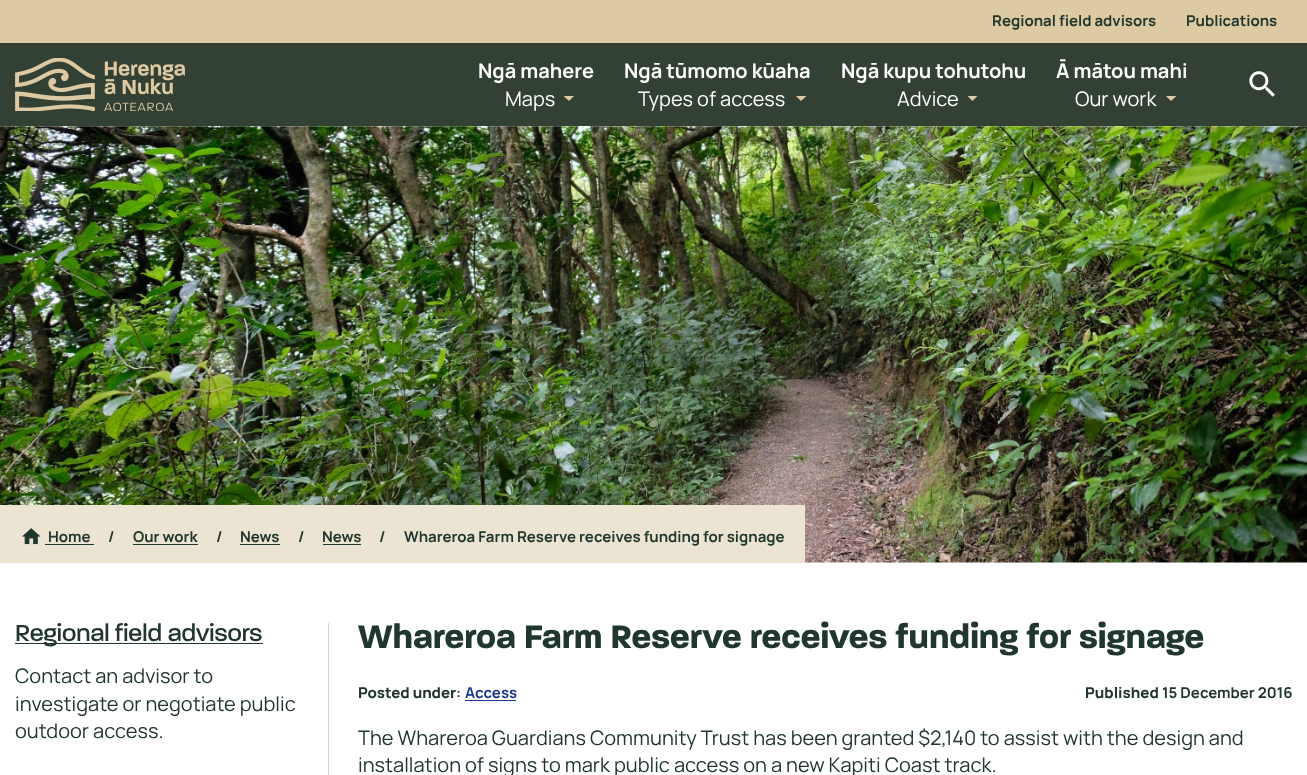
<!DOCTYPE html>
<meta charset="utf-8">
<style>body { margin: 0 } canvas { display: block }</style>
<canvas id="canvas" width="1307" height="775"></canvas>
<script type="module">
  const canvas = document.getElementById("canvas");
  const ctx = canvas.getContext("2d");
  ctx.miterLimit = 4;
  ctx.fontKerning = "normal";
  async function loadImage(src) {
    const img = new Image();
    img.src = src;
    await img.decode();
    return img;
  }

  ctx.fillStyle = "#ffffff";
  ctx.fillRect(0, 0, 1307, 775);
  ctx.fillStyle = "#334135";
  ctx.fillRect(0, 43, 1307, 83);
  ctx.fillStyle = "#ddc9a2";
  ctx.fillRect(0, 0, 1307, 43);
  ctx.font = "bold 15px Manrope";
  ctx.fillStyle = "#21362c";
  ctx.fillText("Regional field advisors", 992, 26);
  ctx.fillText("Publications", 1186, 26);
  ctx.drawImage(await loadImage("img1.png"), 15, 58, 170, 53);
  ctx.font = "bold 20px Manrope";
  ctx.fillStyle = "#ffffff";
  ctx.fillText("Ngā mahere", 478, 78);
  ctx.font = "20px Manrope";
  ctx.fillText("Maps", 505, 106);
  ctx.fillStyle = "#ddc9a2";
  ctx.beginPath();
  ctx.moveTo(563.5, 96);
  ctx.lineTo(569, 101);
  ctx.lineTo(574, 96);
  ctx.closePath();
  ctx.fill();
  ctx.font = "bold 20px Manrope";
  ctx.fillStyle = "#ffffff";
  ctx.fillText("Ngā tūmomo kūaha", 624, 78);
  ctx.font = "20px Manrope";
  ctx.fillText("Types of access", 638, 106);
  ctx.fillStyle = "#ddc9a2";
  ctx.beginPath();
  ctx.moveTo(796, 96);
  ctx.lineTo(801, 101);
  ctx.lineTo(806.5, 96);
  ctx.closePath();
  ctx.fill();
  ctx.font = "bold 20px Manrope";
  ctx.fillStyle = "#ffffff";
  ctx.fillText("Ngā kupu tohutohu", 841, 78);
  ctx.font = "20px Manrope";
  ctx.fillText("Advice", 897, 106);
  ctx.fillStyle = "#ddc9a2";
  ctx.beginPath();
  ctx.moveTo(967.5, 96);
  ctx.lineTo(972.5, 101);
  ctx.lineTo(977.5, 96);
  ctx.closePath();
  ctx.fill();
  ctx.font = "bold 20px Manrope";
  ctx.fillStyle = "#ffffff";
  ctx.fillText("Ā mātou mahi", 1056, 78);
  ctx.font = "20px Manrope";
  ctx.fillText("Our work", 1075, 106);
  ctx.fillStyle = "#ddc9a2";
  ctx.beginPath();
  ctx.moveTo(1166, 96);
  ctx.lineTo(1171, 101);
  ctx.lineTo(1176.5, 96);
  ctx.closePath();
  ctx.fill();
  ctx.drawImage(await loadImage("img2.png"), 1249, 71, 26, 26);
  ctx.drawImage(await loadImage("img3.png"), 0, 126, 1307, 437);
  ctx.fillStyle = "#ece4d3";
  ctx.fillRect(0, 505, 805, 58);
  ctx.drawImage(await loadImage("img4.png"), 22, 528, 19, 17);
  ctx.font = "bold 15px Manrope";
  ctx.fillStyle = "#21362c";
  ctx.fillText("Home", 48, 542);
  ctx.fillRect(45, 544, 49, 1);
  ctx.fillText("/", 108, 542);
  ctx.fillText("Our work", 133, 542);
  ctx.fillRect(133, 544, 65, 1);
  ctx.fillText("/", 216, 542);
  ctx.fillText("News", 240, 542);
  ctx.fillRect(240, 544, 40, 1);
  ctx.fillText("/", 298, 542);
  ctx.fillText("News", 322, 542);
  ctx.fillRect(323, 544, 38, 1);
  ctx.fillText("/", 379, 542);
  ctx.fillText("Whareroa Farm Reserve receives funding for signage", 404, 542);
  ctx.fillRect(15, 643, 248, 1);
  ctx.font = "500 25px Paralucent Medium";
  ctx.fillText("Regional field advisors", 15, 641);
  ctx.font = "20px Manrope";
  ctx.fillText("Contact an advisor to", 15, 683);
  ctx.fillText("investigate or negotiate public", 15, 711);
  ctx.fillText("outdoor access.", 15, 738);
  ctx.fillStyle = "#d4d7d5";
  ctx.fillRect(328, 623, 1, 152);
  ctx.font = "bold 35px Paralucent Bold";
  ctx.fillStyle = "#21362c";
  ctx.fillText("Whareroa Farm Reserve receives funding for signage", 358, 648);
  ctx.font = "800 15px Manrope";
  ctx.fillText("Posted under", 358, 698);
  ctx.font = "bold 15px Manrope";
  ctx.fillText(":", 456, 698);
  ctx.fillStyle = "#1b3591";
  ctx.fillText("Access", 465, 698);
  ctx.fillRect(465, 700, 51, 1);
  ctx.font = "800 15px Manrope";
  ctx.fillStyle = "#21362c";
  ctx.fillText("Published", 1085, 698);
  ctx.font = "bold 15px Manrope";
  ctx.fillText("15 December 2016", 1162, 698);
  ctx.font = "20px Manrope";
  ctx.fillText("The Whareroa Guardians Community Trust has been granted $2,140 to assist with the design and", 358, 745);
  ctx.fillText("installation of signs to mark public access on a new Kapiti Coast track.", 358, 772);
</script>
